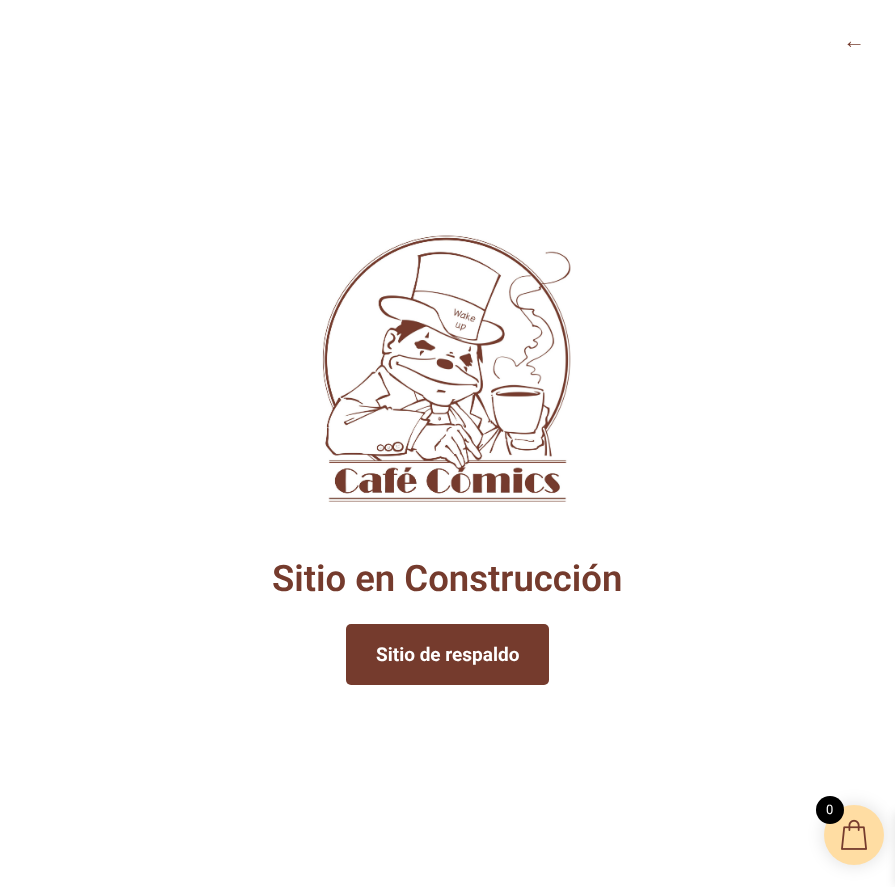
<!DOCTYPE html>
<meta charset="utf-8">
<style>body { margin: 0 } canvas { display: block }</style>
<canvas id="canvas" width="895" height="887"></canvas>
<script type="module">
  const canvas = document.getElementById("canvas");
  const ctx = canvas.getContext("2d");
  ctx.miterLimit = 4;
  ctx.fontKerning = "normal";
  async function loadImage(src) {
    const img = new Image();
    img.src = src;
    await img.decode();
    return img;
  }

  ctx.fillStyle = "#ffffff";
  ctx.fillRect(0, 0, 895, 887);
  ctx.font = "22px Liberation Sans";
  ctx.fillStyle = "#753b2d";
  ctx.fillText("←", 843, 48);
  ctx.drawImage(await loadImage("img1.png"), 322, 235, 249, 267);
  ctx.font = "600 36.5px Roboto";
  ctx.fillText("Sitio en Construcción", 272, 591);
  ctx.beginPath();
  ctx.roundRect(346, 624, 203, 61, 5);
  ctx.fill();
  ctx.font = "bold 19px Roboto";
  ctx.fillStyle = "#ffffff";
  ctx.fillText("Sitio de respaldo", 376, 661);
  ctx.fillStyle = "rgba(0, 0, 0, 0.1)";
  ctx.filter = "blur(7.5px)";
  ctx.beginPath();
  ctx.roundRect(822, 803, 64, 64, 32);
  ctx.fill();
  ctx.filter = "none";
  ctx.filter = "blur(5px)";
  ctx.beginPath();
  ctx.rect(895, 812, 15, 74);
  ctx.fill();
  ctx.filter = "none";
  ctx.fillStyle = "#ffdda3";
  ctx.beginPath();
  ctx.arc(854, 835, 30, 0, Math.PI * 2);
  ctx.fill();
  ctx.drawImage(await loadImage("img2.png"), 841, 819, 26, 31);
  ctx.fillStyle = "#000000";
  ctx.beginPath();
  ctx.arc(830, 810, 14, 0, Math.PI * 2);
  ctx.fill();
  ctx.font = "13px Roboto";
  ctx.fillStyle = "#ffffff";
  ctx.fillText("0", 826, 814);
</script>
